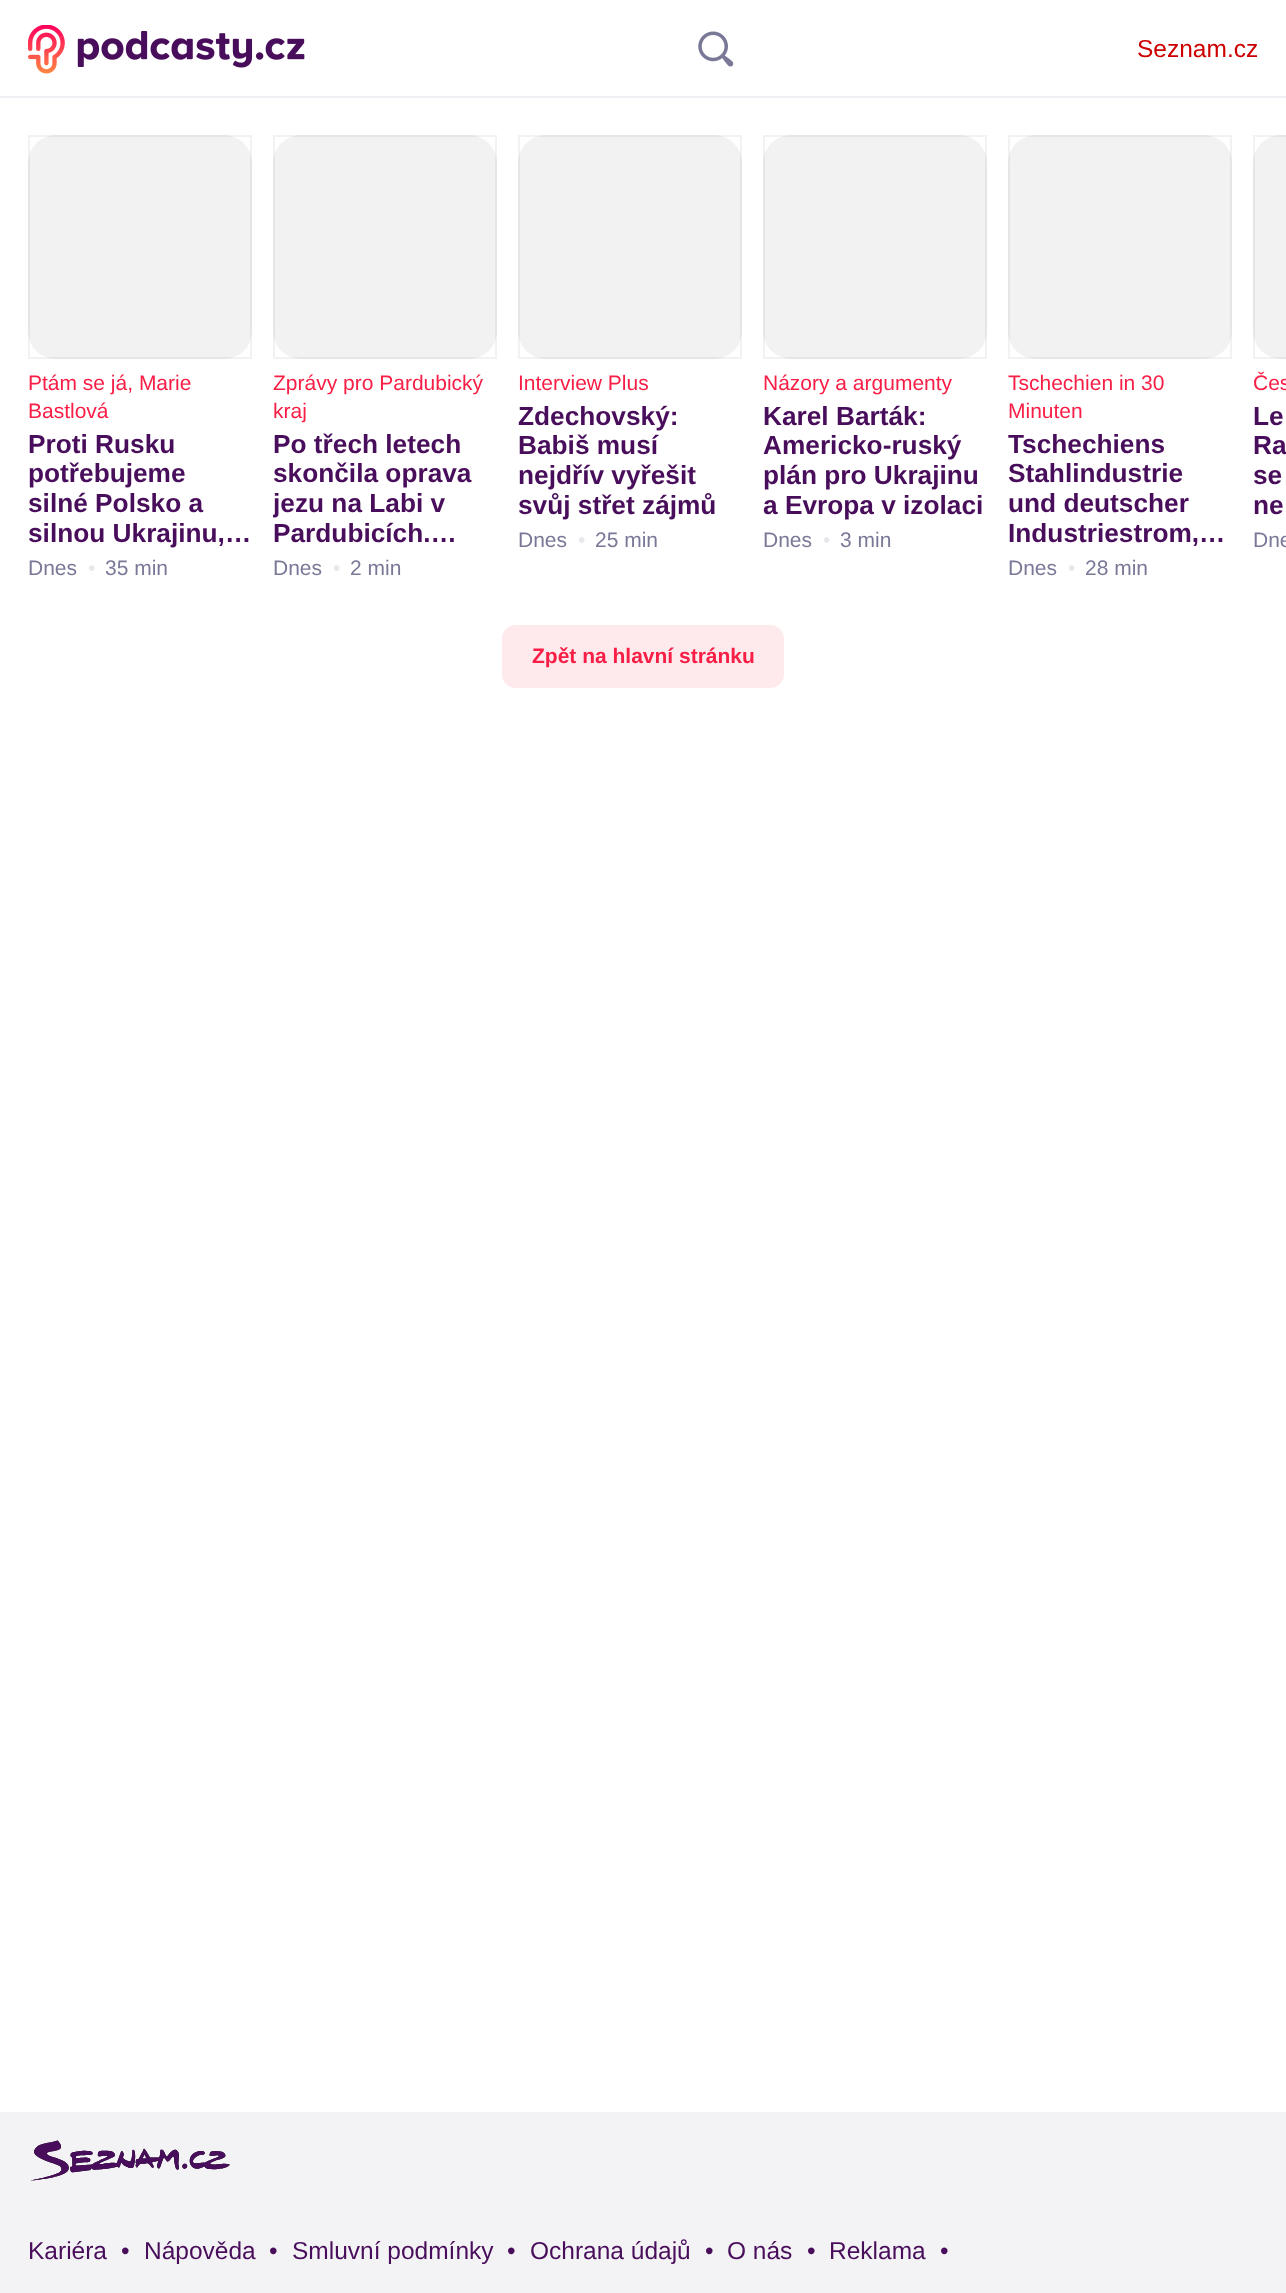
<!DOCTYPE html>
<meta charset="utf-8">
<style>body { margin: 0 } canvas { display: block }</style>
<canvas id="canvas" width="1286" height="2293"></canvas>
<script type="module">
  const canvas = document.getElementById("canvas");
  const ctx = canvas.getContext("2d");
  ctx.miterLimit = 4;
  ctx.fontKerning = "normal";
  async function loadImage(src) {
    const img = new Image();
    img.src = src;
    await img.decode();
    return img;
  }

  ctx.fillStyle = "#ffffff";
  ctx.fillRect(0, 0, 1286, 2293);
  ctx.fillStyle = "#f0f0f4";
  ctx.fillRect(0, 96, 1286, 2);
  ctx.drawImage(await loadImage("img1.png"), 28, 25, 277, 49);
  ctx.drawImage(await loadImage("img2.png"), 698, 31, 36, 36);
  ctx.font = "24.5px Liberation Sans";
  ctx.fillStyle = "#cc0000";
  ctx.fillText("Seznam.cz", 1137, 57);
  ctx.fillStyle = "#f2f2f2";
  ctx.beginPath();
  ctx.roundRect(28, 135, 224, 224, 28);
  ctx.fill();
  ctx.strokeStyle = "rgba(0, 0, 0, 0.05)";
  ctx.lineWidth = 2;
  ctx.strokeRect(29, 136, 222, 222);
  ctx.font = "21px Liberation Sans";
  ctx.fillStyle = "#f81e45";
  ctx.fillText("Ptám se já, Marie", 28, 390);
  ctx.fillText("Bastlová", 28, 418);
  ctx.font = "bold 26.25px Liberation Sans";
  ctx.fillStyle = "#490e5b";
  ctx.fillText("Proti Rusku", 28, 453);
  ctx.fillText("potřebujeme", 28, 482);
  ctx.fillText("silné Polsko a", 28, 512);
  ctx.fillText("silnou Ukrajinu,…", 28, 542);
  ctx.font = "21px Liberation Sans";
  ctx.fillStyle = "#797897";
  ctx.fillText("Dnes", 28, 575);
  ctx.fillStyle = "#e7e7ec";
  ctx.fillText("•", 88, 575);
  ctx.fillStyle = "#797897";
  ctx.fillText("35 min", 105, 575);
  ctx.fillStyle = "#f2f2f2";
  ctx.beginPath();
  ctx.roundRect(273, 135, 224, 224, 28);
  ctx.fill();
  ctx.strokeRect(274, 136, 222, 222);
  ctx.fillStyle = "#f81e45";
  ctx.fillText("Zprávy pro Pardubický", 273, 390);
  ctx.fillText("kraj", 273, 418);
  ctx.font = "bold 26.25px Liberation Sans";
  ctx.fillStyle = "#490e5b";
  ctx.fillText("Po třech letech", 273, 453);
  ctx.fillText("skončila oprava", 273, 482);
  ctx.save();
  ctx.beginPath();
  ctx.rect(273, 429, 224, 119);
  ctx.clip();
  ctx.fillText("jezu na Labi v", 273, 512);
  ctx.restore();
  ctx.fillText("Pardubicích.…", 273, 542);
  ctx.font = "21px Liberation Sans";
  ctx.fillStyle = "#797897";
  ctx.fillText("Dnes", 273, 575);
  ctx.fillStyle = "#e7e7ec";
  ctx.fillText("•", 333, 575);
  ctx.fillStyle = "#797897";
  ctx.fillText("2 min", 350, 575);
  ctx.fillStyle = "#f2f2f2";
  ctx.beginPath();
  ctx.roundRect(518, 135, 224, 224, 28);
  ctx.fill();
  ctx.strokeRect(519, 136, 222, 222);
  ctx.fillStyle = "#f81e45";
  ctx.fillText("Interview Plus", 518, 390);
  ctx.font = "bold 26.25px Liberation Sans";
  ctx.fillStyle = "#490e5b";
  ctx.fillText("Zdechovský:", 518, 425);
  ctx.fillText("Babiš musí", 518, 454);
  ctx.fillText("nejdřív vyřešit", 518, 484);
  ctx.fillText("svůj střet zájmů", 518, 514);
  ctx.font = "21px Liberation Sans";
  ctx.fillStyle = "#797897";
  ctx.fillText("Dnes", 518, 547);
  ctx.fillStyle = "#e7e7ec";
  ctx.fillText("•", 578, 547);
  ctx.fillStyle = "#797897";
  ctx.fillText("25 min", 595, 547);
  ctx.fillStyle = "#f2f2f2";
  ctx.beginPath();
  ctx.roundRect(763, 135, 224, 224, 28);
  ctx.fill();
  ctx.strokeRect(764, 136, 222, 222);
  ctx.fillStyle = "#f81e45";
  ctx.fillText("Názory a argumenty", 763, 390);
  ctx.font = "bold 26.25px Liberation Sans";
  ctx.fillStyle = "#490e5b";
  ctx.fillText("Karel Barták:", 763, 425);
  ctx.fillText("Americko-ruský", 763, 454);
  ctx.fillText("plán pro Ukrajinu", 763, 484);
  ctx.fillText("a Evropa v izolaci", 763, 514);
  ctx.font = "21px Liberation Sans";
  ctx.fillStyle = "#797897";
  ctx.fillText("Dnes", 763, 547);
  ctx.fillStyle = "#e7e7ec";
  ctx.fillText("•", 823, 547);
  ctx.fillStyle = "#797897";
  ctx.fillText("3 min", 840, 547);
  ctx.fillStyle = "#f2f2f2";
  ctx.beginPath();
  ctx.roundRect(1008, 135, 224, 224, 28);
  ctx.fill();
  ctx.strokeRect(1009, 136, 222, 222);
  ctx.fillStyle = "#f81e45";
  ctx.fillText("Tschechien in 30", 1008, 390);
  ctx.fillText("Minuten", 1008, 418);
  ctx.font = "bold 26.25px Liberation Sans";
  ctx.fillStyle = "#490e5b";
  ctx.fillText("Tschechiens", 1008, 453);
  ctx.fillText("Stahlindustrie", 1008, 482);
  ctx.fillText("und deutscher", 1008, 512);
  ctx.fillText("Industriestrom,…", 1008, 542);
  ctx.font = "21px Liberation Sans";
  ctx.fillStyle = "#797897";
  ctx.fillText("Dnes", 1008, 575);
  ctx.fillStyle = "#e7e7ec";
  ctx.fillText("•", 1068, 575);
  ctx.fillStyle = "#797897";
  ctx.fillText("28 min", 1085, 575);
  ctx.fillStyle = "#f2f2f2";
  ctx.beginPath();
  ctx.roundRect(1253, 135, 33, 224, [28, 0, 0, 28]);
  ctx.fill();
  ctx.strokeRect(1254, 136, 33, 222);
  ctx.fillStyle = "#f81e45";
  ctx.fillText("Čes", 1253, 390);
  ctx.font = "bold 26.25px Liberation Sans";
  ctx.fillStyle = "#490e5b";
  ctx.fillText("Le", 1253, 425);
  ctx.fillText("Ra", 1253, 454);
  ctx.fillText("se", 1253, 484);
  ctx.fillText("ne", 1253, 514);
  ctx.font = "21px Liberation Sans";
  ctx.fillStyle = "#797897";
  ctx.fillText("Dne", 1253, 547);
  ctx.fillStyle = "#fee9ec";
  ctx.beginPath();
  ctx.roundRect(502, 625, 282, 63, 14);
  ctx.fill();
  ctx.font = "bold 21px Liberation Sans";
  ctx.fillStyle = "#f81e45";
  ctx.fillText("Zpět na hlavní stránku", 532, 663);
  ctx.fillStyle = "#f3f3f5";
  ctx.fillRect(0, 2112, 1286, 181);
  ctx.drawImage(await loadImage("img3.png"), 30, 2140, 200, 41);
  ctx.font = "24.5px Liberation Sans";
  ctx.fillStyle = "#490e5b";
  ctx.fillText("Kariéra", 28, 2259);
  ctx.fillText("•", 121, 2259);
  ctx.fillText("Nápověda", 144, 2259);
  ctx.fillText("•", 269, 2259);
  ctx.fillText("Smluvní podmínky", 292, 2259);
  ctx.fillText("•", 507, 2259);
  ctx.fillText("Ochrana údajů", 530, 2259);
  ctx.fillText("•", 705, 2259);
  ctx.fillText("O nás", 727, 2259);
  ctx.fillText("•", 807, 2259);
  ctx.fillText("Reklama", 829, 2259);
  ctx.fillText("•", 940, 2259);
</script>
